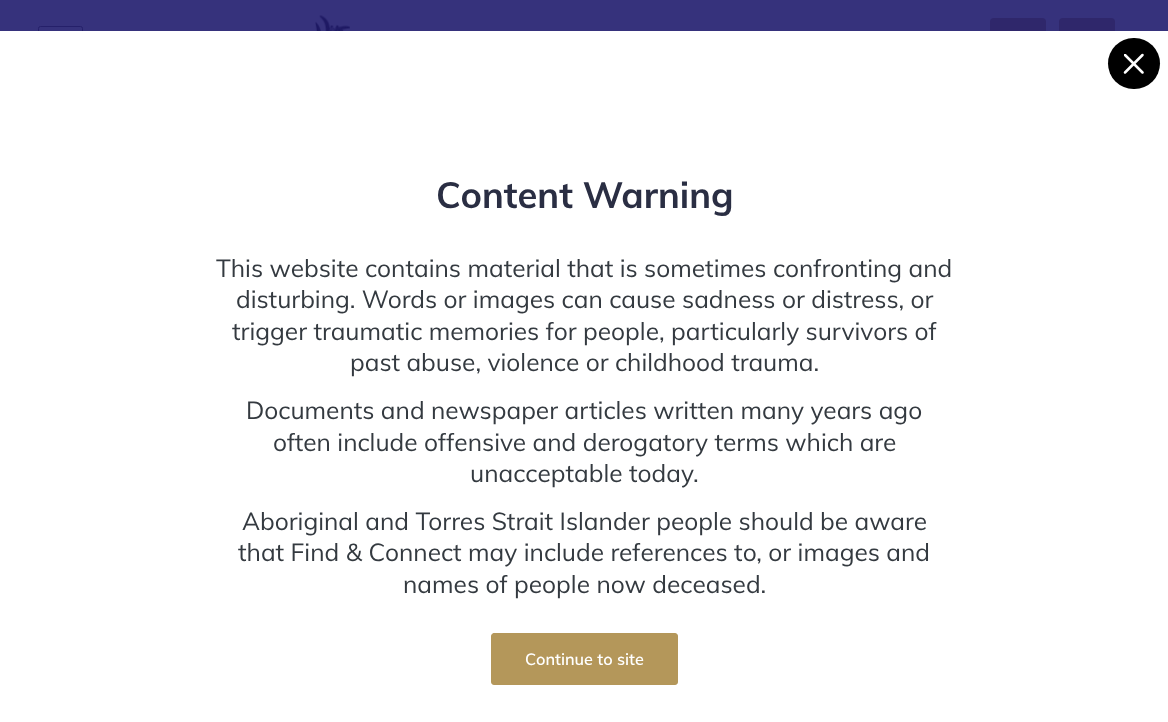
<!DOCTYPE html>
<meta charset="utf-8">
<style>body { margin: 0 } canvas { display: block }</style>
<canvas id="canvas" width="1168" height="722"></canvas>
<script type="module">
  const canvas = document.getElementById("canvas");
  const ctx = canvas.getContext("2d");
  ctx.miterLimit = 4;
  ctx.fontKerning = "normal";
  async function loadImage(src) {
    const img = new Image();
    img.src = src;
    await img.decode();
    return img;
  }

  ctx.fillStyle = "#36327c";
  ctx.fillRect(0, 0, 1168, 722);
  ctx.beginPath();
  ctx.roundRect(38.5, 26.5, 44, 41, 2);
  ctx.strokeStyle = "#25206a";
  ctx.stroke();
  ctx.drawImage(await loadImage("img1.png"), 315, 15, 35, 16);
  ctx.fillStyle = "#2f276b";
  ctx.beginPath();
  ctx.roundRect(990, 18, 56, 57, 4);
  ctx.fill();
  ctx.beginPath();
  ctx.roundRect(1059, 18, 56, 57, 4);
  ctx.fill();
  ctx.fillStyle = "#ffffff";
  ctx.fillRect(0, 31, 1168, 691);
  ctx.fillStyle = "#000000";
  ctx.beginPath();
  ctx.roundRect(1108, 38, 52, 51, 25.5);
  ctx.fill();
  ctx.save();
  ctx.beginPath();
  ctx.rect(1124, 54, 21, 20);
  ctx.clip();
  ctx.beginPath();
  ctx.moveTo(1125, 55);
  ctx.lineTo(1142.5, 72.5);
  ctx.strokeStyle = "#ffffff";
  ctx.lineWidth = 2.5;
  ctx.lineCap = "round";
  ctx.stroke();
  ctx.restore();
  ctx.beginPath();
  ctx.moveTo(1142.5, 55);
  ctx.lineTo(1125, 72.5);
  ctx.strokeStyle = "#ffffff";
  ctx.lineWidth = 2.5;
  ctx.lineCap = "round";
  ctx.stroke();
  ctx.font = "bold 36.25px Muli";
  ctx.fillStyle = "#2a2e43";
  ctx.fillText("Content Warning", 436, 208);
  ctx.font = "24.5px Muli";
  ctx.fillStyle = "#343a40";
  ctx.fillText("This website contains material that is sometimes confronting and", 216, 277);
  ctx.fillText("disturbing. Words or images can cause sadness or distress, or", 236, 308);
  ctx.fillText("trigger traumatic memories for people, particularly survivors of", 232, 340);
  ctx.fillText("past abuse, violence or childhood trauma.", 350, 371);
  ctx.fillText("Documents and newspaper articles written many years ago", 246, 419);
  ctx.fillText("often include offensive and derogatory terms which are", 273, 451);
  ctx.fillText("unacceptable today.", 470, 482);
  ctx.fillText("Aboriginal and Torres Strait Islander people should be aware", 242, 530);
  ctx.fillText("that Find & Connect may include references to, or images and", 238, 561);
  ctx.fillText("names of people now deceased.", 403, 593);
  ctx.fillStyle = "#b4975a";
  ctx.beginPath();
  ctx.roundRect(491.5, 633.5, 186, 51, 2.5);
  ctx.fill();
  ctx.strokeStyle = "#b4975a";
  ctx.lineWidth = 1;
  ctx.stroke();
  ctx.font = "600 16.25px Muli";
  ctx.fillStyle = "#ffffff";
  ctx.fillText("Continue to site", 525, 665);
</script>
